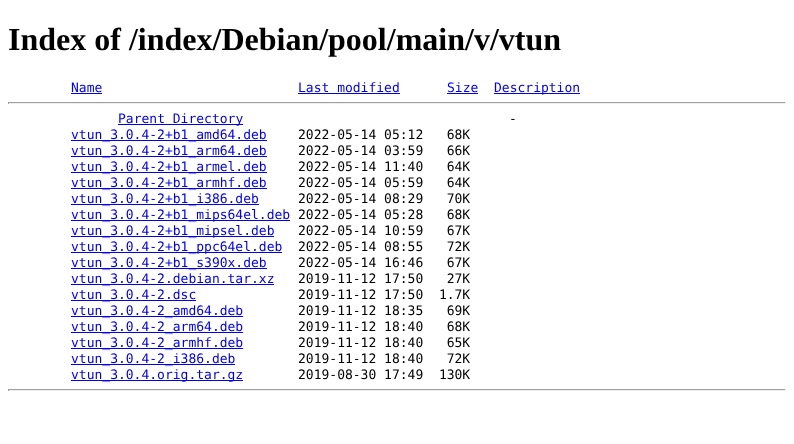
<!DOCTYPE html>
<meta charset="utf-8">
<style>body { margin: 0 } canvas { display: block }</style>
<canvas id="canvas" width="794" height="444"></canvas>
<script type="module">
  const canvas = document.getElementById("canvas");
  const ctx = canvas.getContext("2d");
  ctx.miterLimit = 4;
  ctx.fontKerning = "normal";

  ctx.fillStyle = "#ffffff";
  ctx.fillRect(0, 0, 794, 444);
  ctx.font = "bold 32px Liberation Serif";
  ctx.fillStyle = "#000000";
  ctx.fillText("Index of /index/Debian/pool/main/v/vtun", 8, 50);
  ctx.font = "13px DejaVu Sans Mono";
  ctx.fillStyle = "#0000ee";
  ctx.fillText("Name", 71, 92);
  ctx.fillRect(71, 93, 31, 1);
  ctx.fillText("Last modified", 298, 92);
  ctx.fillRect(298, 93, 102, 1);
  ctx.fillText("Size", 447, 92);
  ctx.fillRect(447, 93, 31, 1);
  ctx.fillRect(494, 93, 86, 1);
  ctx.fillText("Description", 494, 92);
  ctx.fillStyle = "#9f9f9f";
  ctx.fillRect(8, 102, 778, 1);
  ctx.fillStyle = "#eeeeee";
  ctx.fillRect(785, 102, 1, 2);
  ctx.fillRect(8, 103, 778, 1);
  ctx.fillStyle = "#9f9f9f";
  ctx.fillRect(8, 102, 1, 2);
  ctx.fillStyle = "#0000ee";
  ctx.fillRect(118, 124, 125, 1);
  ctx.fillText("Parent Directory", 118, 123);
  ctx.fillStyle = "#000000";
  ctx.fillText("-", 509, 123);
  ctx.fillStyle = "#0000ee";
  ctx.fillRect(71, 140, 196, 1);
  ctx.fillText("vtun_3.0.4-2+b1_amd64.deb", 71, 139);
  ctx.fillStyle = "#000000";
  ctx.fillText("2022-05-14 05:12   68K", 298, 139);
  ctx.fillStyle = "#0000ee";
  ctx.fillRect(71, 156, 196, 1);
  ctx.fillText("vtun_3.0.4-2+b1_arm64.deb", 71, 155);
  ctx.fillStyle = "#000000";
  ctx.fillText("2022-05-14 03:59   66K", 298, 155);
  ctx.fillStyle = "#0000ee";
  ctx.fillRect(71, 172, 196, 1);
  ctx.fillText("vtun_3.0.4-2+b1_armel.deb", 71, 171);
  ctx.fillStyle = "#000000";
  ctx.fillText("2022-05-14 11:40   64K", 298, 171);
  ctx.fillStyle = "#0000ee";
  ctx.fillRect(71, 188, 196, 1);
  ctx.fillText("vtun_3.0.4-2+b1_armhf.deb", 71, 187);
  ctx.fillStyle = "#000000";
  ctx.fillText("2022-05-14 05:59   64K", 298, 187);
  ctx.fillStyle = "#0000ee";
  ctx.fillRect(71, 204, 188, 1);
  ctx.fillText("vtun_3.0.4-2+b1_i386.deb", 71, 203);
  ctx.fillStyle = "#000000";
  ctx.fillText("2022-05-14 08:29   70K", 298, 203);
  ctx.fillStyle = "#0000ee";
  ctx.fillRect(71, 220, 219, 1);
  ctx.fillText("vtun_3.0.4-2+b1_mips64el.deb", 71, 219);
  ctx.fillStyle = "#000000";
  ctx.fillText("2022-05-14 05:28   68K", 298, 219);
  ctx.fillStyle = "#0000ee";
  ctx.fillRect(71, 236, 203, 1);
  ctx.fillText("vtun_3.0.4-2+b1_mipsel.deb", 71, 235);
  ctx.fillStyle = "#000000";
  ctx.fillText("2022-05-14 10:59   67K", 298, 235);
  ctx.fillStyle = "#0000ee";
  ctx.fillRect(71, 252, 211, 1);
  ctx.fillText("vtun_3.0.4-2+b1_ppc64el.deb", 71, 251);
  ctx.fillStyle = "#000000";
  ctx.fillText("2022-05-14 08:55   72K", 298, 251);
  ctx.fillStyle = "#0000ee";
  ctx.fillRect(71, 268, 196, 1);
  ctx.fillText("vtun_3.0.4-2+b1_s390x.deb", 71, 267);
  ctx.fillStyle = "#000000";
  ctx.fillText("2022-05-14 16:46   67K", 298, 267);
  ctx.fillStyle = "#0000ee";
  ctx.fillRect(71, 284, 203, 1);
  ctx.fillText("vtun_3.0.4-2.debian.tar.xz", 71, 283);
  ctx.fillStyle = "#000000";
  ctx.fillText("2019-11-12 17:50   27K", 298, 283);
  ctx.fillStyle = "#0000ee";
  ctx.fillRect(71, 300, 125, 1);
  ctx.fillText("vtun_3.0.4-2.dsc", 71, 299);
  ctx.fillStyle = "#000000";
  ctx.fillText("2019-11-12 17:50  1.7K", 298, 299);
  ctx.fillStyle = "#0000ee";
  ctx.fillRect(71, 316, 172, 1);
  ctx.fillText("vtun_3.0.4-2_amd64.deb", 71, 315);
  ctx.fillStyle = "#000000";
  ctx.fillText("2019-11-12 18:35   69K", 298, 315);
  ctx.fillStyle = "#0000ee";
  ctx.fillRect(71, 332, 172, 1);
  ctx.fillText("vtun_3.0.4-2_arm64.deb", 71, 331);
  ctx.fillStyle = "#000000";
  ctx.fillText("2019-11-12 18:40   68K", 298, 331);
  ctx.fillStyle = "#0000ee";
  ctx.fillRect(71, 348, 172, 1);
  ctx.fillText("vtun_3.0.4-2_armhf.deb", 71, 347);
  ctx.fillStyle = "#000000";
  ctx.fillText("2019-11-12 18:40   65K", 298, 347);
  ctx.fillStyle = "#0000ee";
  ctx.fillRect(71, 364, 164, 1);
  ctx.fillText("vtun_3.0.4-2_i386.deb", 71, 363);
  ctx.fillStyle = "#000000";
  ctx.fillText("2019-11-12 18:40   72K", 298, 363);
  ctx.fillStyle = "#0000ee";
  ctx.fillRect(71, 380, 172, 1);
  ctx.fillText("vtun_3.0.4.orig.tar.gz", 71, 379);
  ctx.fillStyle = "#000000";
  ctx.fillText("2019-08-30 17:49  130K", 298, 379);
  ctx.fillStyle = "#9f9f9f";
  ctx.fillRect(8, 389, 778, 1);
  ctx.fillStyle = "#eeeeee";
  ctx.fillRect(785, 389, 1, 2);
  ctx.fillRect(8, 390, 778, 1);
  ctx.fillStyle = "#9f9f9f";
  ctx.fillRect(8, 389, 1, 2);
</script>
